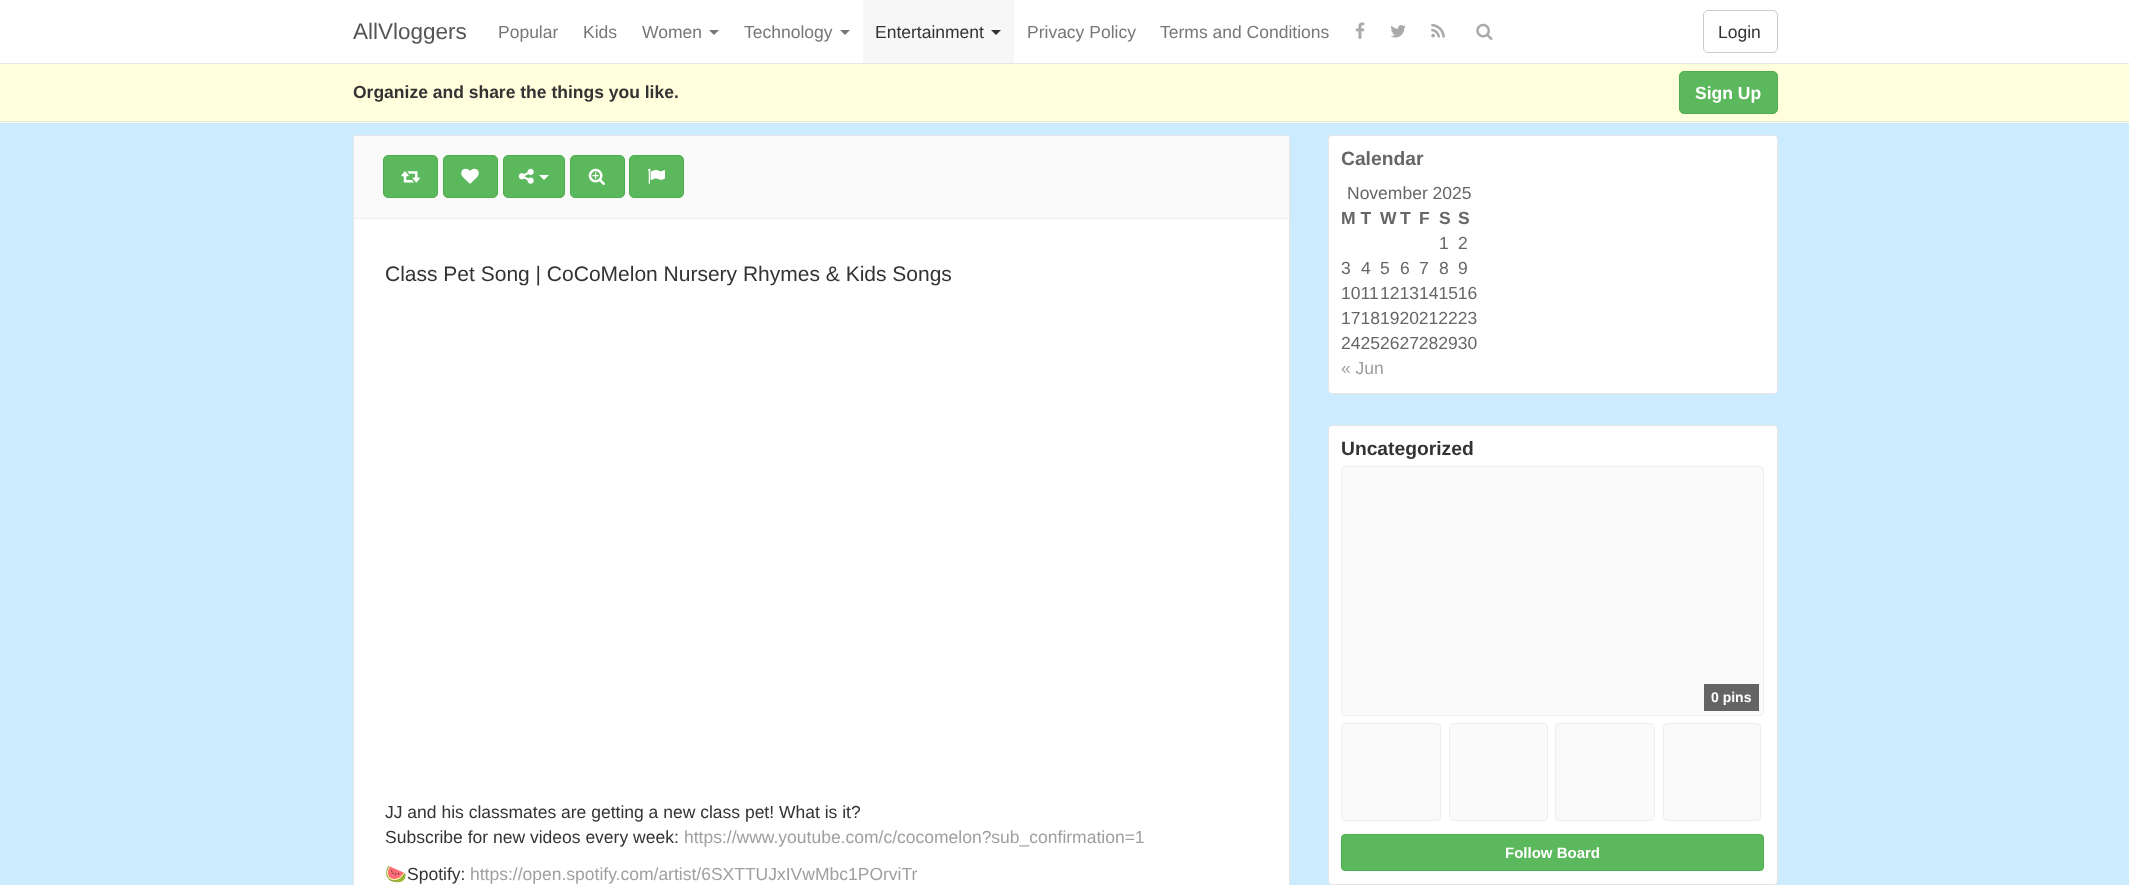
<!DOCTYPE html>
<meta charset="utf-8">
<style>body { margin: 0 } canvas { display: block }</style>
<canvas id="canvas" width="2129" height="885"></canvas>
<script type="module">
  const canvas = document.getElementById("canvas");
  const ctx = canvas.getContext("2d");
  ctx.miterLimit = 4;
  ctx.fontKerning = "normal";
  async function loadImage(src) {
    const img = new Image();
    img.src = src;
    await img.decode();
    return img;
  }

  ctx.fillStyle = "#ccebff";
  ctx.fillRect(0, 0, 2129, 885);
  ctx.fillStyle = "#ffffff";
  ctx.fillRect(0, 0, 2129, 63);
  ctx.fillStyle = "#e7e7e7";
  ctx.fillRect(0, 63, 2129, 1);
  ctx.font = "22.5px Liberation Sans";
  ctx.fillStyle = "#555555";
  ctx.fillText("AllVloggers", 353, 39);
  ctx.font = "17.5px Liberation Sans";
  ctx.fillStyle = "#777777";
  ctx.fillText("Popular", 498, 38);
  ctx.fillText("Kids", 583, 38);
  ctx.fillText("Women", 642, 38);
  ctx.beginPath();
  ctx.moveTo(709, 30);
  ctx.lineTo(719, 30);
  ctx.lineTo(714, 35);
  ctx.closePath();
  ctx.fill();
  ctx.fillText("Technology", 744, 38);
  ctx.beginPath();
  ctx.moveTo(840, 30);
  ctx.lineTo(850, 30);
  ctx.lineTo(845, 35);
  ctx.closePath();
  ctx.fill();
  ctx.fillStyle = "#f7f7f7";
  ctx.fillRect(863, 0, 151, 63);
  ctx.fillStyle = "#333333";
  ctx.fillText("Entertainment", 875, 38);
  ctx.beginPath();
  ctx.moveTo(991, 30);
  ctx.lineTo(1001, 30);
  ctx.lineTo(996, 35);
  ctx.closePath();
  ctx.fill();
  ctx.fillStyle = "#777777";
  ctx.fillText("Privacy Policy", 1027, 38);
  ctx.fillText("Terms and Conditions", 1160, 38);
  ctx.drawImage(await loadImage("img1.png"), 1355, 22, 10, 17);
  ctx.drawImage(await loadImage("img2.png"), 1390, 25, 16, 13);
  ctx.drawImage(await loadImage("img3.png"), 1431, 23, 14, 15);
  ctx.drawImage(await loadImage("img4.png"), 1476, 23, 17, 17);
  ctx.beginPath();
  ctx.roundRect(1703.5, 10.5, 74, 42, 4.5);
  ctx.strokeStyle = "#cccccc";
  ctx.stroke();
  ctx.fillStyle = "#333333";
  ctx.fillText("Login", 1718, 38);
  ctx.fillStyle = "#ffffdd";
  ctx.fillRect(0, 64, 2129, 59);
  ctx.fillStyle = "#e7e7e7";
  ctx.fillRect(0, 121, 2129, 1);
  ctx.font = "bold 17.5px Liberation Sans";
  ctx.fillStyle = "#333333";
  ctx.fillText("Organize and share the things you like.", 353, 98);
  ctx.fillStyle = "#5cb85c";
  ctx.beginPath();
  ctx.roundRect(1679.5, 71.5, 98, 42, 4.5);
  ctx.fill();
  ctx.strokeStyle = "#4cae4c";
  ctx.stroke();
  ctx.fillStyle = "#ffffff";
  ctx.fillText("Sign Up", 1695, 99);
  ctx.beginPath();
  ctx.roundRect(353.5, 135.5, 936, 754, 3.5);
  ctx.fill();
  ctx.strokeStyle = "#e5e5e5";
  ctx.stroke();
  ctx.fillStyle = "#fafafa";
  ctx.fillRect(354, 136, 935, 82);
  ctx.fillStyle = "#eeeeee";
  ctx.fillRect(354, 218, 935, 1);
  ctx.fillStyle = "#5cb85c";
  ctx.beginPath();
  ctx.roundRect(383.5, 155.5, 54, 42, 4.5);
  ctx.fill();
  ctx.strokeStyle = "#4cae4c";
  ctx.stroke();
  ctx.drawImage(await loadImage("img5.png"), 401, 171, 19, 12);
  ctx.beginPath();
  ctx.roundRect(443.5, 155.5, 54, 42, 4.5);
  ctx.fill();
  ctx.stroke();
  ctx.drawImage(await loadImage("img6.png"), 461, 168, 18, 16);
  ctx.beginPath();
  ctx.roundRect(503.5, 155.5, 61, 42, 4.5);
  ctx.fill();
  ctx.stroke();
  ctx.drawImage(await loadImage("img7.png"), 518, 168, 16, 16);
  ctx.fillStyle = "#ffffff";
  ctx.beginPath();
  ctx.moveTo(539, 175);
  ctx.lineTo(549, 175);
  ctx.lineTo(544, 180);
  ctx.closePath();
  ctx.fill();
  ctx.fillStyle = "#5cb85c";
  ctx.beginPath();
  ctx.roundRect(570.5, 155.5, 54, 42, 4.5);
  ctx.fill();
  ctx.stroke();
  ctx.drawImage(await loadImage("img8.png"), 588, 168, 17, 17);
  ctx.beginPath();
  ctx.roundRect(629.5, 155.5, 54, 42, 4.5);
  ctx.fill();
  ctx.stroke();
  ctx.drawImage(await loadImage("img9.png"), 648, 168, 17, 16);
  ctx.font = "21px Liberation Sans";
  ctx.fillStyle = "#333333";
  ctx.fillText("Class Pet Song | CoCoMelon Nursery Rhymes & Kids Songs", 385, 281);
  ctx.font = "17.5px Liberation Sans";
  ctx.fillText("JJ and his classmates are getting a new class pet! What is it?", 385, 818);
  ctx.fillText("Subscribe for new videos every week:", 385, 843);
  ctx.fillStyle = "#9f9f9f";
  ctx.fillText("https://www.youtube.com/c/cocomelon?sub_confirmation=1", 684, 843);
  ctx.font = "17.5px Noto Color Emoji";
  ctx.fillStyle = "#333333";
  ctx.fillText("🍉", 385, 880);
  ctx.font = "17.5px Liberation Sans";
  ctx.fillText("Spotify:", 407, 880);
  ctx.fillStyle = "#9f9f9f";
  ctx.fillText("https://open.spotify.com/artist/6SXTTUJxIVwMbc1POrviTr", 470, 880);
  ctx.fillStyle = "#ffffff";
  ctx.beginPath();
  ctx.roundRect(1328.5, 135.5, 449, 258, 3.5);
  ctx.fill();
  ctx.strokeStyle = "#e5e5e5";
  ctx.stroke();
  ctx.font = "bold 19.25px Liberation Sans";
  ctx.fillStyle = "#666666";
  ctx.fillText("Calendar", 1341, 165);
  ctx.font = "17.5px Liberation Sans";
  ctx.fillText("November 2025", 1347, 199);
  ctx.font = "bold 17.5px Liberation Sans";
  ctx.fillText("M T", 1341, 224);
  ctx.fillText("W", 1380, 224);
  ctx.fillText("T", 1400, 224);
  ctx.fillText("F", 1419, 224);
  ctx.fillText("S", 1439, 224);
  ctx.fillText("S", 1458, 224);
  ctx.font = "17.5px Liberation Sans";
  ctx.fillText("1", 1439, 249);
  ctx.fillText("2", 1458, 249);
  ctx.fillText("3", 1341, 274);
  ctx.fillText("4", 1361, 274);
  ctx.fillText("5", 1380, 274);
  ctx.fillText("6", 1400, 274);
  ctx.fillText("7", 1419, 274);
  ctx.fillText("8", 1439, 274);
  ctx.fillText("9", 1458, 274);
  ctx.fillText("1011", 1341, 299);
  ctx.fillText("1213141516", 1380, 299);
  ctx.fillText("17181920212223", 1341, 324);
  ctx.fillText("24252627282930", 1341, 349);
  ctx.fillStyle = "#9f9f9f";
  ctx.fillText("« Jun", 1341, 374);
  ctx.fillStyle = "#ffffff";
  ctx.beginPath();
  ctx.roundRect(1328.5, 425.5, 449, 459, 3.5);
  ctx.fill();
  ctx.stroke();
  ctx.font = "bold 19.25px Liberation Sans";
  ctx.fillStyle = "#333333";
  ctx.fillText("Uncategorized", 1341, 455);
  ctx.fillStyle = "#fafafa";
  ctx.beginPath();
  ctx.roundRect(1341.5, 466.5, 422, 249, 3.5);
  ctx.fill();
  ctx.strokeStyle = "#eeeeee";
  ctx.stroke();
  ctx.fillStyle = "#646464";
  ctx.fillRect(1704, 684, 55, 27);
  ctx.font = "bold 14px Liberation Sans";
  ctx.fillStyle = "#ffffff";
  ctx.fillText("0 pins", 1711, 702);
  ctx.fillStyle = "#fafafa";
  ctx.beginPath();
  ctx.roundRect(1341.5, 723.5, 99, 97, 3.5);
  ctx.fill();
  ctx.stroke();
  ctx.beginPath();
  ctx.roundRect(1449.5, 723.5, 98, 97, 3.5);
  ctx.fill();
  ctx.stroke();
  ctx.beginPath();
  ctx.roundRect(1555.5, 723.5, 99, 97, 3.5);
  ctx.fill();
  ctx.stroke();
  ctx.beginPath();
  ctx.roundRect(1663.5, 723.5, 97, 97, 3.5);
  ctx.fill();
  ctx.stroke();
  ctx.fillStyle = "#5cb85c";
  ctx.beginPath();
  ctx.roundRect(1341.5, 834.5, 422, 36, 3.5);
  ctx.fill();
  ctx.strokeStyle = "#4cae4c";
  ctx.stroke();
  ctx.font = "bold 15px Liberation Sans";
  ctx.fillStyle = "#ffffff";
  ctx.fillText("Follow Board", 1505, 858);
</script>
